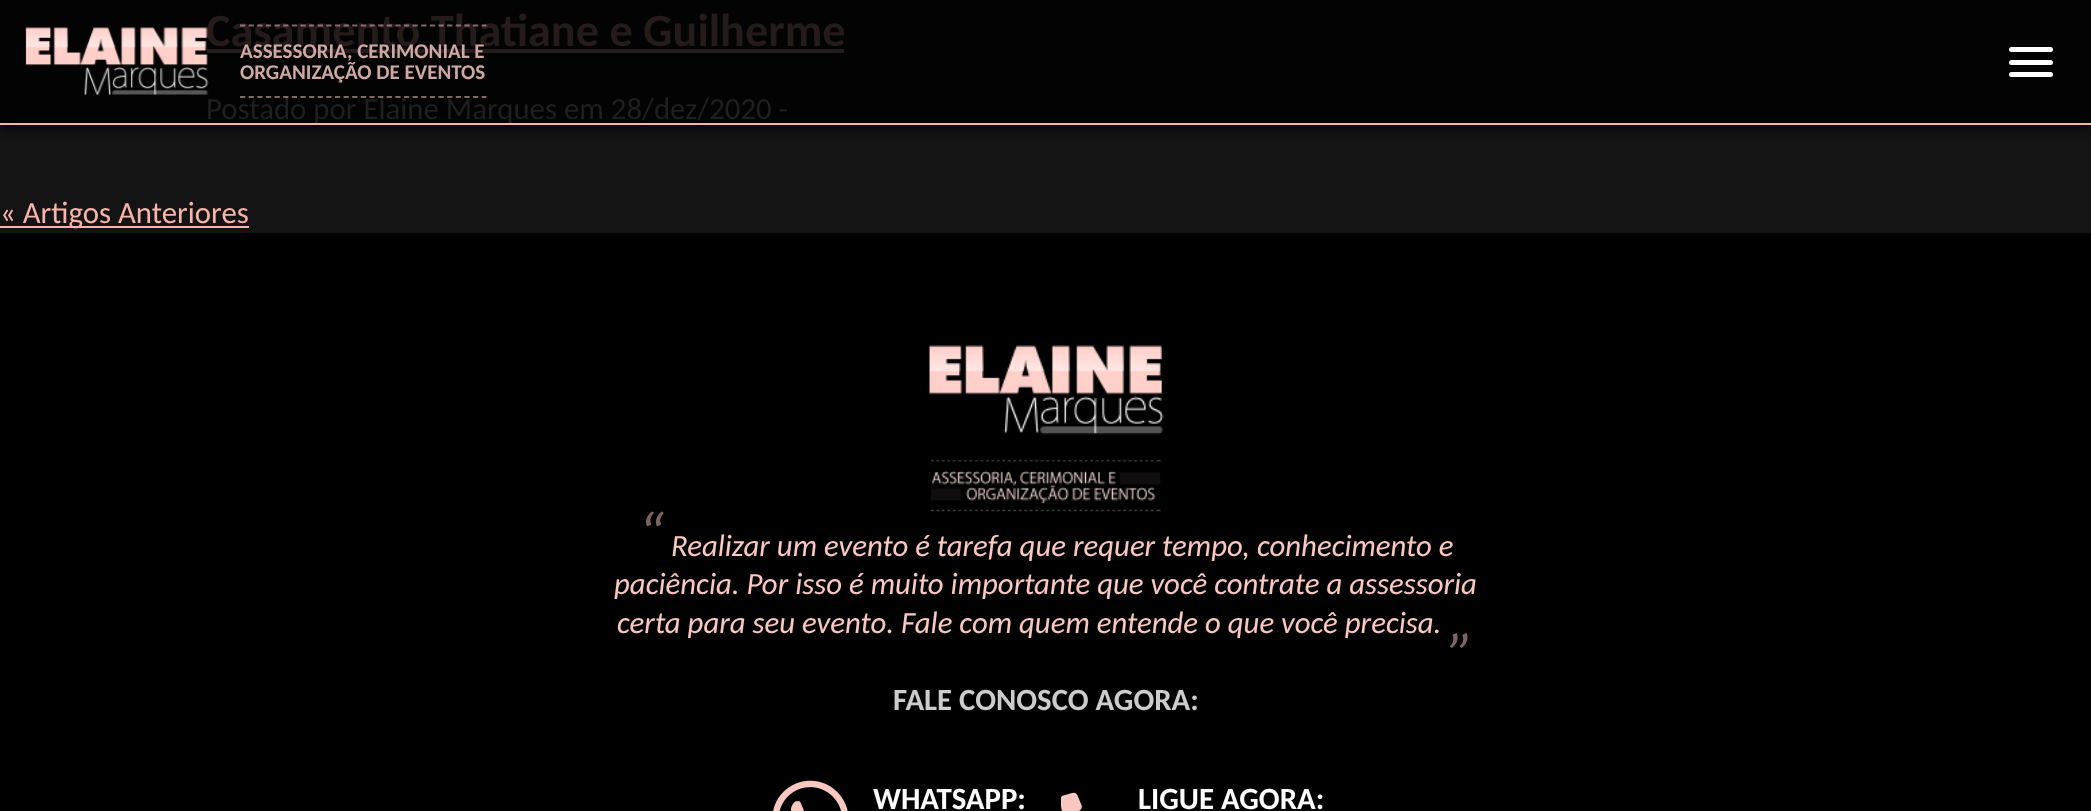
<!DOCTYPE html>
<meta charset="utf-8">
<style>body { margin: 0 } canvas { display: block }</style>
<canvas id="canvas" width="2091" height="811"></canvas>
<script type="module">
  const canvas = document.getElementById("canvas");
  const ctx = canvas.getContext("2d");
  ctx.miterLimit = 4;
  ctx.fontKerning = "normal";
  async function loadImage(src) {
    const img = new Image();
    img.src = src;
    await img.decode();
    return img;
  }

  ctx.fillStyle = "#141414";
  ctx.fillRect(0, 0, 2091, 811);
  ctx.fillStyle = "#030303";
  ctx.fillRect(0, 0, 2091, 123);
  ctx.font = "bold 46.25px Carlito";
  ctx.fillStyle = "#251b1a";
  ctx.fillText("Casamento Thatiane e Guilherme", 206, 46);
  ctx.fillRect(207, 49, 637, 4);
  ctx.font = "30.8px Carlito";
  ctx.fillStyle = "#1f1f1f";
  ctx.fillText("Postado por Elaine Marques em 28/dez/2020 -", 206, 119);
  ctx.fillStyle = "#f8b3ab";
  ctx.fillRect(0, 226, 249, 2);
  ctx.fillText("« Artigos Anteriores", 0, 223);
  ctx.save();
  ctx.beginPath();
  ctx.rect(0, 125, 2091, 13);
  ctx.clip();
  ctx.fillStyle = "rgba(0, 0, 0, 0.6)";
  ctx.filter = "blur(4.5px)";
  ctx.beginPath();
  ctx.rect(0, 5, 2091, 125);
  ctx.fill();
  ctx.filter = "none";
  ctx.restore();
  ctx.fillRect(0, 123, 2091, 2);
  ctx.drawImage(await loadImage("img1.png"), 25, 27, 184, 68);
  ctx.beginPath();
  ctx.moveTo(240, 25.5);
  ctx.lineTo(486.5, 25.5);
  ctx.strokeStyle = "rgba(255, 207, 202, 0.5)";
  ctx.lineWidth = 1.8;
  ctx.setLineDash([5.25, 3.38]);
  ctx.stroke();
  ctx.beginPath();
  ctx.moveTo(240, 97);
  ctx.lineTo(486.5, 97);
  ctx.stroke();
  ctx.font = "bold 21px Carlito";
  ctx.fillStyle = "#cfa8a4";
  ctx.fillText("ASSESSORIA, CERIMONIAL E", 240, 58);
  ctx.fillText("ORGANIZAÇÃO DE EVENTOS", 240, 79);
  ctx.fillStyle = "#ffffff";
  ctx.beginPath();
  ctx.roundRect(2009, 47, 44, 5, 2.5);
  ctx.fill();
  ctx.beginPath();
  ctx.roundRect(2009, 60, 44, 5, 2.5);
  ctx.fill();
  ctx.beginPath();
  ctx.roundRect(2009, 72, 44, 5, 2.5);
  ctx.fill();
  ctx.fillStyle = "#000000";
  ctx.fillRect(0, 233, 2091, 578);
  ctx.drawImage(await loadImage("img2.png"), 928, 345, 236, 167);
  ctx.font = "italic 62px Carlito";
  ctx.fillStyle = "#7e6461";
  ctx.fillText("“", 638, 556);
  ctx.font = "italic 30.8px Carlito";
  ctx.fillStyle = "#fbc7c1";
  ctx.fillText("Realizar um evento é tarefa que requer tempo, conhecimento e", 671, 556);
  ctx.fillText("paciência. Por isso é muito importante que você contrate a assessoria", 614, 594);
  ctx.fillText("certa para seu evento. Fale com quem entende o que você precisa.", 617, 633);
  ctx.font = "italic 62px Carlito";
  ctx.fillStyle = "#7e6461";
  ctx.fillText("”", 1448, 676);
  ctx.font = "bold 30.8px Carlito";
  ctx.fillStyle = "#cccccc";
  ctx.fillText("FALE CONOSCO AGORA:", 893, 710);
  ctx.drawImage(await loadImage("img3.png"), 773, 780, 75, 31);
  ctx.fillStyle = "#ffffff";
  ctx.fillText("WHATSAPP:", 873, 809);
  ctx.drawImage(await loadImage("img4.png"), 1061, 792, 21, 19);
  ctx.fillText("LIGUE AGORA:", 1138, 809);
</script>
